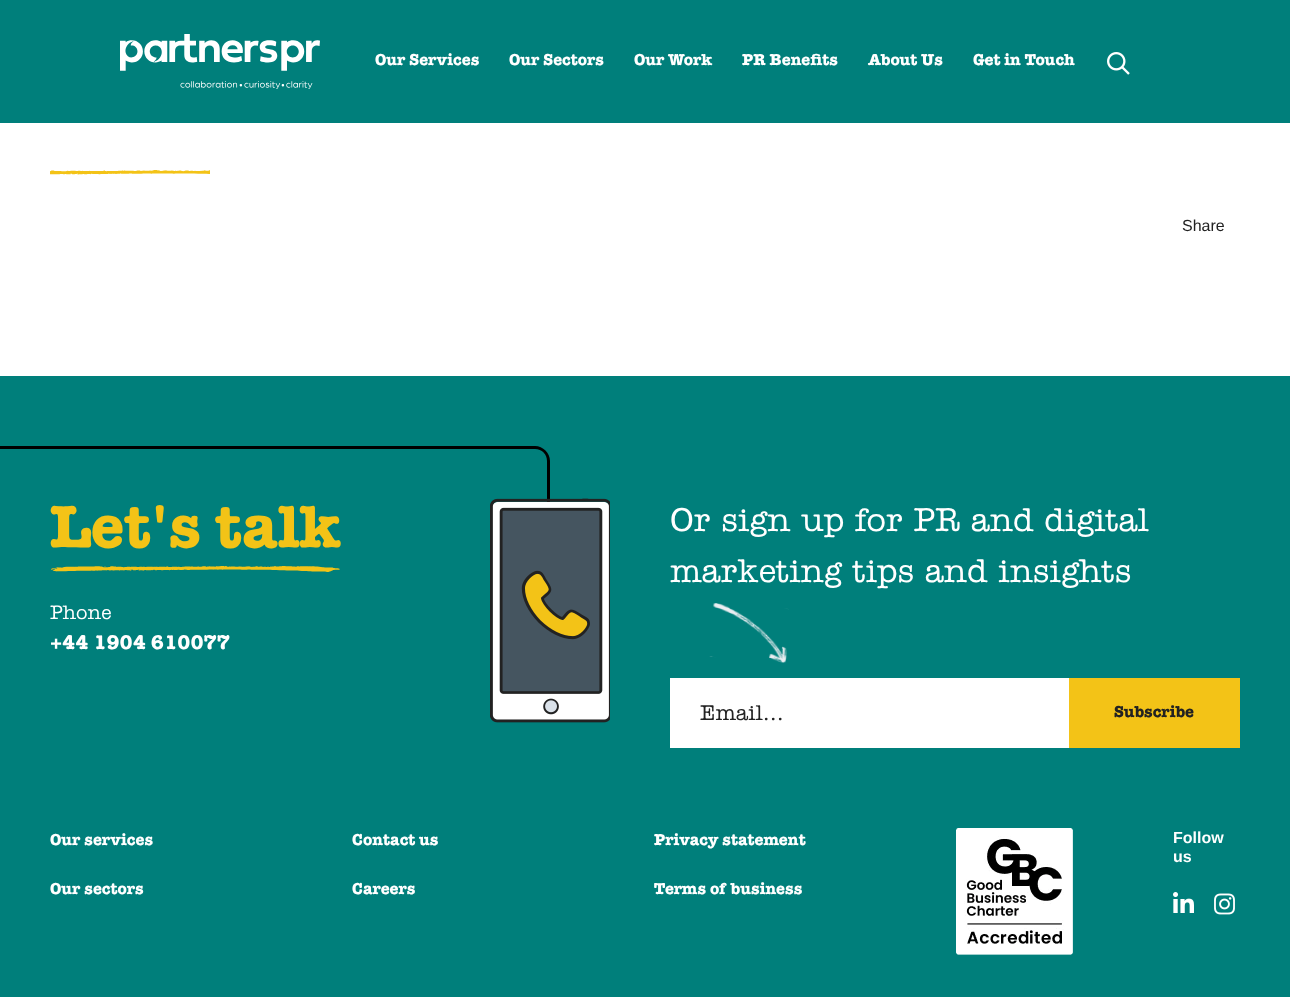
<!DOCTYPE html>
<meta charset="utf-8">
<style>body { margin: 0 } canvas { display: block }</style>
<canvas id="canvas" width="1290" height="997"></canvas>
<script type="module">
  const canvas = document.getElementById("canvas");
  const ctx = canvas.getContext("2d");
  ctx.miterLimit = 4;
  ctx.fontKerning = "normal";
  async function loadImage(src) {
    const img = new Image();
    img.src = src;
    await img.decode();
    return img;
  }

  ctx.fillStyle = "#ffffff";
  ctx.fillRect(0, 0, 1290, 997);
  ctx.fillStyle = "#007f7b";
  ctx.fillRect(0, 0, 1290, 123);
  ctx.drawImage(await loadImage("img1.png"), 120, 34, 200, 55);
  ctx.font = "bold 16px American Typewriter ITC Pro";
  ctx.fillStyle = "#ffffff";
  ctx.fillText("Our Services", 375, 65);
  ctx.fillText("Our Sectors", 509, 65);
  ctx.fillText("Our Work", 634, 65);
  ctx.fillText("PR Benefits", 742, 65);
  ctx.fillText("About Us", 868, 65);
  ctx.fillText("Get in Touch", 973, 65);
  ctx.drawImage(await loadImage("img2.png"), 1107, 52, 23, 23);
  ctx.drawImage(await loadImage("img3.png"), 50, 170, 160, 5);
  ctx.font = "16px Liberation Sans";
  ctx.fillStyle = "#222222";
  ctx.fillText("Share", 1182, 231);
  ctx.fillStyle = "#007f7b";
  ctx.fillRect(0, 376, 1290, 621);
  ctx.font = "bold 60px American Typewriter ITC Pro";
  ctx.fillStyle = "#f3c317";
  ctx.fillText("Let's talk", 50, 547);
  ctx.fillStyle = "#000000";
  ctx.beginPath();
  ctx.moveTo(-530, 446);
  ctx.lineTo(535, 446);
  ctx.bezierCurveTo(543, 446, 550, 453, 550, 461);
  ctx.lineTo(550, 501);
  ctx.bezierCurveTo(550, 509, 543, 516, 535, 516);
  ctx.lineTo(-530, 516);
  ctx.bezierCurveTo(-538, 516, -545, 509, -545, 501);
  ctx.lineTo(-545, 461);
  ctx.bezierCurveTo(-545, 453, -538, 446, -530, 446);
  ctx.closePath();
  ctx.moveTo(-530, 449);
  ctx.lineTo(535, 449);
  ctx.bezierCurveTo(542, 449, 547, 454, 547, 461);
  ctx.lineTo(547, 501);
  ctx.bezierCurveTo(547, 509, 542, 516, 535, 516);
  ctx.lineTo(-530, 516);
  ctx.bezierCurveTo(-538, 516, -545, 509, -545, 501);
  ctx.lineTo(-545, 461);
  ctx.bezierCurveTo(-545, 454, -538, 449, -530, 449);
  ctx.closePath();
  ctx.fill("evenodd");
  ctx.drawImage(await loadImage("img4.png"), 490, 498, 120, 225);
  ctx.drawImage(await loadImage("img5.png"), 51, 566, 289, 6);
  ctx.font = "500 20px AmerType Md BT";
  ctx.fillStyle = "#ffffff";
  ctx.fillText("Phone", 50, 619);
  ctx.font = "bold 20px American Typewriter ITC Pro";
  ctx.fillText("+44 1904 610077", 50, 649);
  ctx.font = "500 34px AmerType Md BT";
  ctx.fillText("Or sign up for PR and digital", 670, 531);
  ctx.fillText("marketing tips and insights", 670, 582);
  ctx.drawImage(await loadImage("img6.png"), 709, 603, 80, 60);
  ctx.fillRect(670, 678, 399, 70);
  ctx.font = "500 22px AmerType Md BT";
  ctx.fillStyle = "#222222";
  ctx.fillText("Email...", 700, 720);
  ctx.fillStyle = "#f3c317";
  ctx.fillRect(1069, 678, 171, 70);
  ctx.font = "bold 16px American Typewriter ITC Pro";
  ctx.fillStyle = "#222222";
  ctx.fillText("Subscribe", 1114, 717);
  ctx.fillStyle = "#ffffff";
  ctx.fillText("Our services", 50, 845);
  ctx.fillText("Our sectors", 50, 894);
  ctx.fillText("Contact us", 352, 845);
  ctx.fillText("Careers", 352, 894);
  ctx.fillText("Privacy statement", 654, 845);
  ctx.fillText("Terms of business", 654, 894);
  ctx.drawImage(await loadImage("img7.png"), 956, 828, 117, 127);
  ctx.font = "bold 16px Liberation Sans";
  ctx.fillText("Follow", 1173, 843);
  ctx.fillText("us", 1173, 862);
  ctx.drawImage(await loadImage("img8.png"), 1173, 892, 21, 21);
  ctx.drawImage(await loadImage("img9.png"), 1214, 893, 21, 22);
</script>
